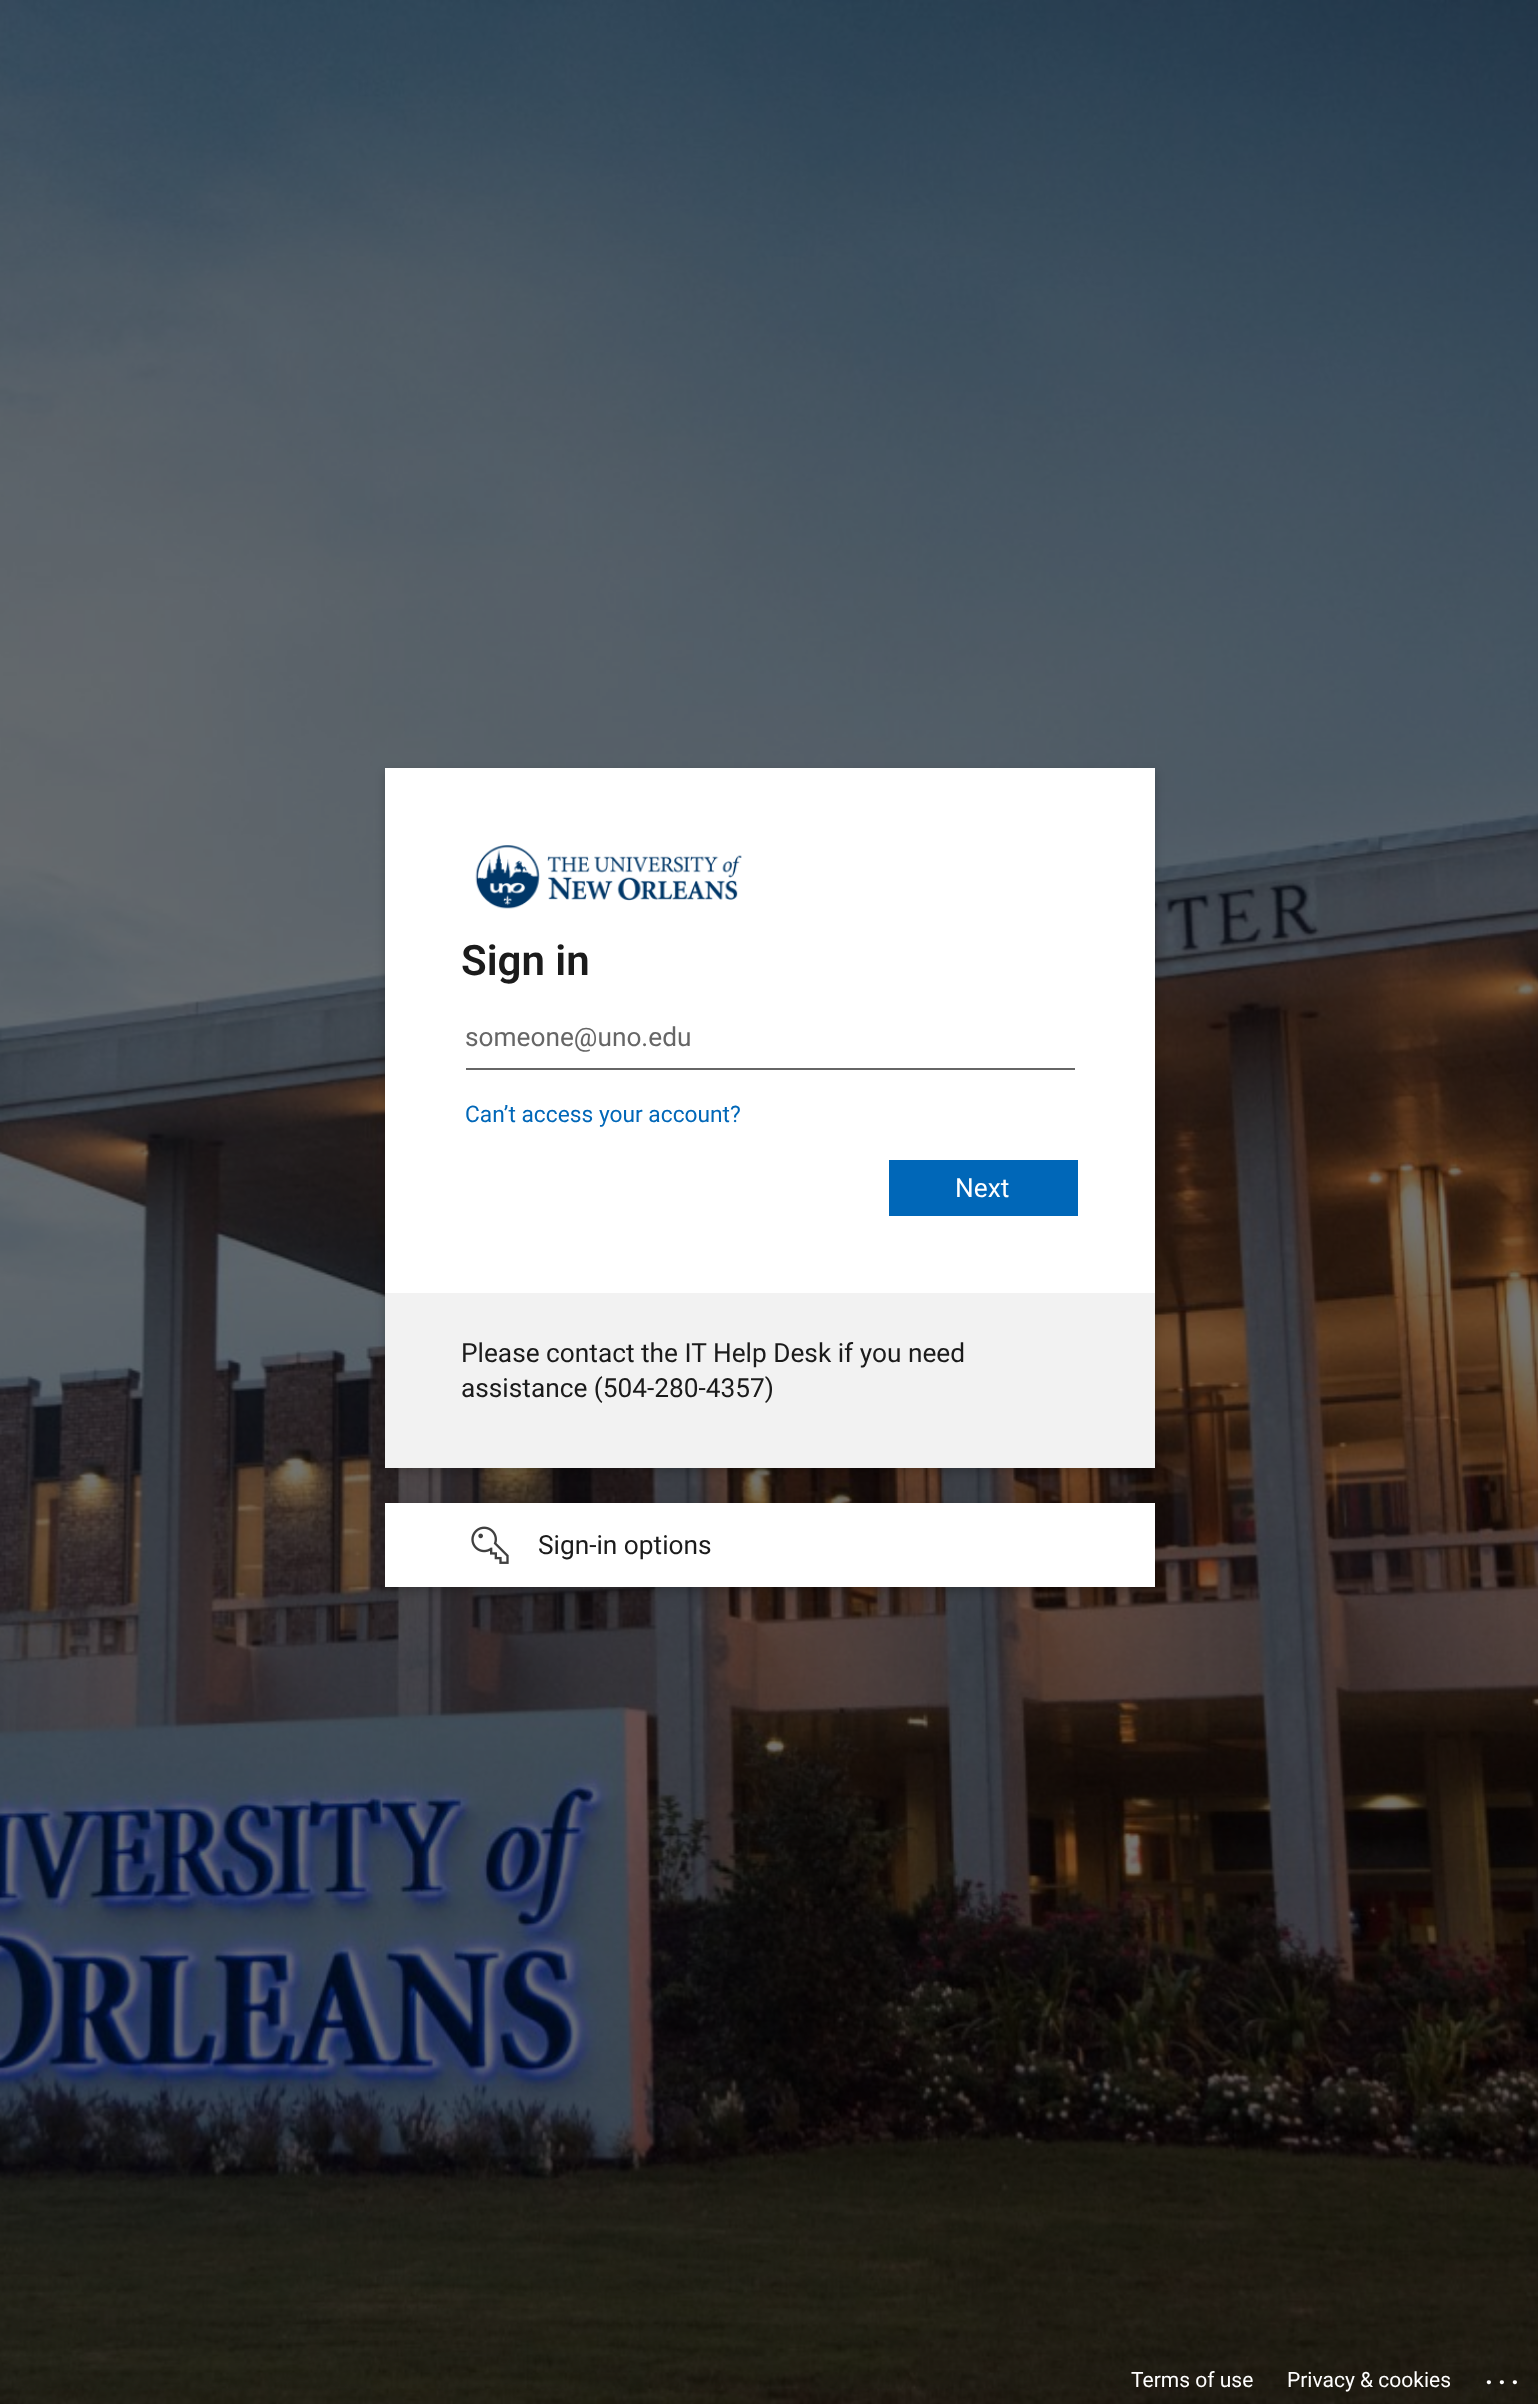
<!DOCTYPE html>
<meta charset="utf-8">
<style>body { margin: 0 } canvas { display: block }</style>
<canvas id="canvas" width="1538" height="2404"></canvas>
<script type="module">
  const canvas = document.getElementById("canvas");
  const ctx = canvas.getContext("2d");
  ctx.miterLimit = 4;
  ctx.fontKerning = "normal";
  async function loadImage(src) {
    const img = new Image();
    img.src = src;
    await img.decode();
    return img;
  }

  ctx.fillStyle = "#ffffff";
  ctx.fillRect(0, 0, 1538, 2404);
  ctx.drawImage(await loadImage("img1.png"), 0, 0, 1538, 2404);
  ctx.fillStyle = "rgba(0, 0, 0, 0.2)";
  ctx.filter = "blur(5px)";
  ctx.beginPath();
  ctx.rect(385, 772, 770, 700);
  ctx.fill();
  ctx.filter = "none";
  ctx.fillStyle = "#ffffff";
  ctx.fillRect(385, 768, 770, 525);
  ctx.drawImage(await loadImage("img2.png"), 475, 845, 267, 64);
  ctx.font = "600 42px Roboto";
  ctx.fillStyle = "#1b1b1b";
  ctx.fillText("Sign in", 461, 975);
  ctx.fillStyle = "#666666";
  ctx.fillRect(466, 1068, 609, 2);
  ctx.font = "26.25px Roboto";
  ctx.fillText("someone@uno.edu", 465, 1046);
  ctx.font = "22.75px Roboto";
  ctx.fillStyle = "#0067b8";
  ctx.fillText("Can’t access your account?", 465, 1122);
  ctx.fillRect(889, 1160, 189, 56);
  ctx.font = "26.25px Roboto";
  ctx.fillStyle = "#ffffff";
  ctx.fillText("Next", 955, 1197);
  ctx.fillStyle = "#f2f2f2";
  ctx.fillRect(385, 1293, 770, 175);
  ctx.fillStyle = "#1b1b1b";
  ctx.fillText("Please contact the IT Help Desk if you need", 461, 1362);
  ctx.fillText("assistance (504-280-4357)", 461, 1397);
  ctx.fillStyle = "rgba(0, 0, 0, 0.2)";
  ctx.filter = "blur(5px)";
  ctx.beginPath();
  ctx.rect(385, 1507, 770, 84);
  ctx.fill();
  ctx.filter = "none";
  ctx.fillStyle = "#ffffff";
  ctx.fillRect(385, 1503, 770, 84);
  ctx.drawImage(await loadImage("img3.png"), 471, 1526, 38, 38);
  ctx.fillStyle = "#1b1b1b";
  ctx.fillText("Sign-in options", 538, 1554);
  ctx.font = "21px Roboto";
  ctx.fillStyle = "#ffffff";
  ctx.fillText("Terms of use", 1131, 2387);
  ctx.fillText("Privacy & cookies", 1287, 2387);
  ctx.letterSpacing = "5px";
  ctx.font = "600 28px Roboto";
  ctx.fillText("...", 1485, 2384);
</script>
